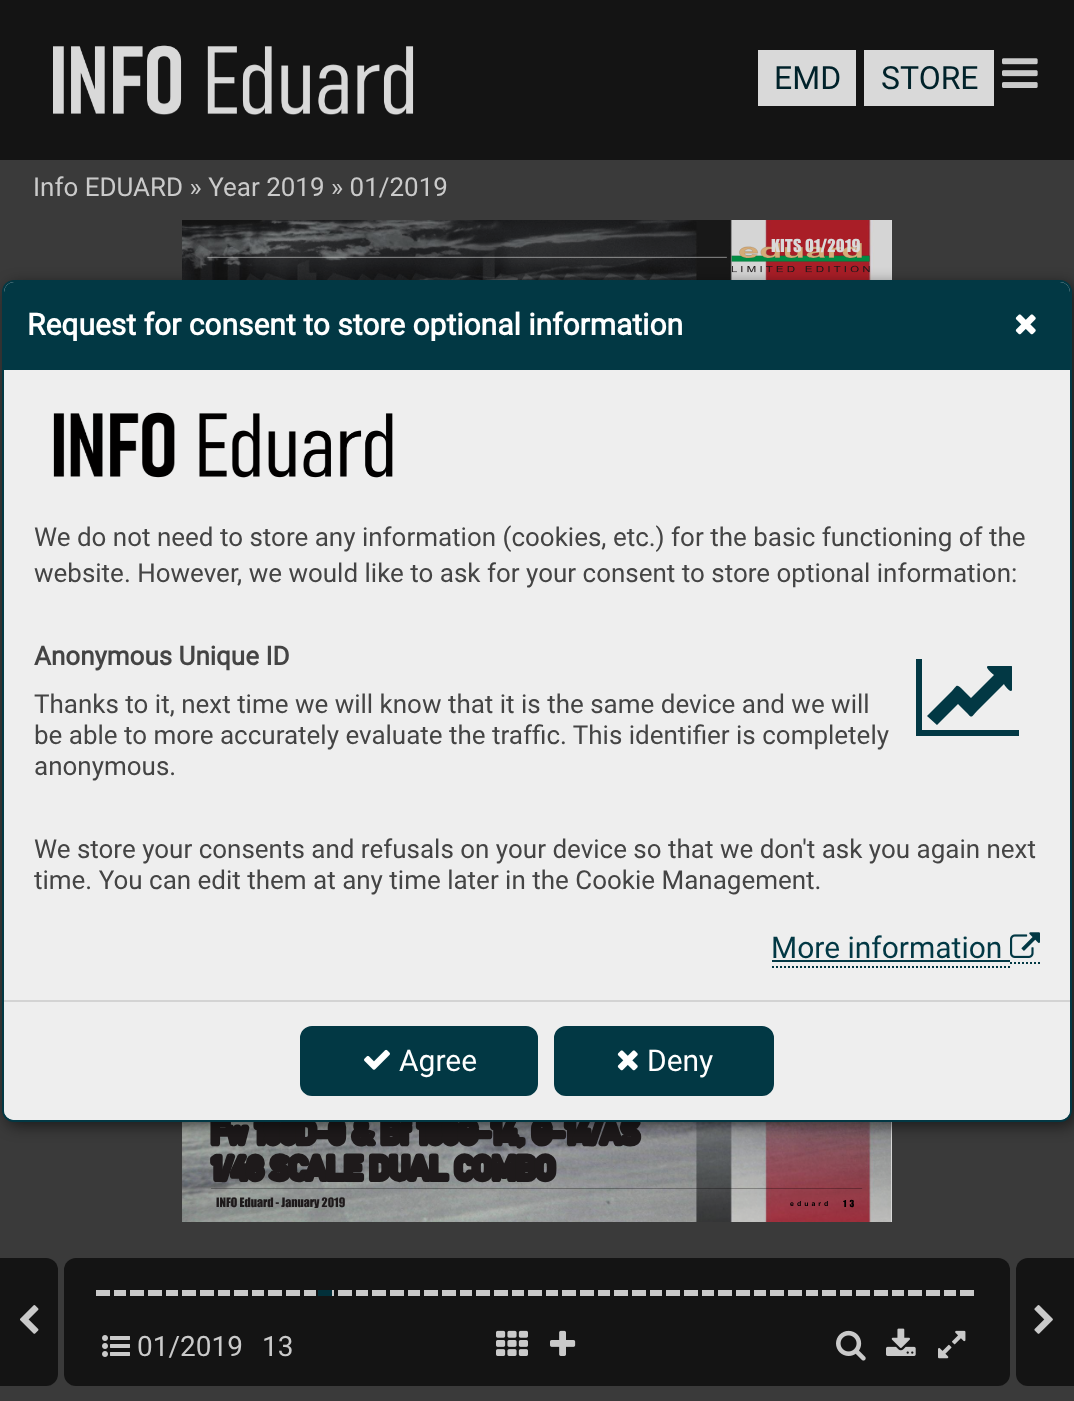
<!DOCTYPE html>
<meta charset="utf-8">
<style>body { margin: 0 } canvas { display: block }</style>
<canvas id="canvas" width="1074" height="1401"></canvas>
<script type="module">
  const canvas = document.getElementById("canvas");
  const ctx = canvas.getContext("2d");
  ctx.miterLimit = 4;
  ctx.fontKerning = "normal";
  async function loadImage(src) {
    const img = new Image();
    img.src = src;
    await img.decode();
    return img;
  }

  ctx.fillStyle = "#3a3a3a";
  ctx.fillRect(0, 0, 1074, 1401);
  ctx.fillStyle = "#141414";
  ctx.fillRect(0, 0, 1074, 160);
  ctx.drawImage(await loadImage("img1.png"), 53, 45, 361, 70);
  ctx.fillStyle = "#d9d9d9";
  ctx.fillRect(758, 50, 98, 56);
  ctx.font = "32px Roboto";
  ctx.fillStyle = "#00222a";
  ctx.fillText("EMD", 774, 89);
  ctx.fillStyle = "#d9d9d9";
  ctx.fillRect(864, 50, 130, 56);
  ctx.fillStyle = "#00222a";
  ctx.fillText("STORE", 881, 89);
  ctx.drawImage(await loadImage("img2.png"), 1002, 58, 36, 30);
  ctx.font = "26px Roboto";
  ctx.fillStyle = "#cacaca";
  ctx.fillText("Info EDUARD » Year 2019 » 01/2019", 33, 196);
  ctx.fillStyle = "#141414";
  ctx.beginPath();
  ctx.roundRect(0, 1258, 58, 128, [0, 12, 12, 0]);
  ctx.fill();
  ctx.drawImage(await loadImage("img3.png"), 20, 1305, 19, 29);
  ctx.beginPath();
  ctx.roundRect(64, 1258, 946, 128, 12);
  ctx.fill();
  ctx.fillStyle = "#cacaca";
  ctx.fillRect(96, 1290, 14, 6);
  ctx.fillRect(114, 1290, 12, 6);
  ctx.fillRect(130, 1290, 14, 6);
  ctx.fillRect(148, 1290, 14, 6);
  ctx.fillRect(166, 1290, 12, 6);
  ctx.fillRect(182, 1290, 14, 6);
  ctx.fillRect(200, 1290, 14, 6);
  ctx.fillRect(218, 1290, 12, 6);
  ctx.fillRect(234, 1290, 14, 6);
  ctx.fillRect(252, 1290, 12, 6);
  ctx.fillRect(268, 1290, 14, 6);
  ctx.fillRect(286, 1290, 14, 6);
  ctx.fillRect(304, 1290, 12, 6);
  ctx.fillRect(332, 1290, 2, 6);
  ctx.fillRect(338, 1290, 14, 6);
  ctx.fillRect(356, 1290, 12, 6);
  ctx.fillRect(372, 1290, 14, 6);
  ctx.fillRect(390, 1290, 14, 6);
  ctx.fillRect(408, 1290, 12, 6);
  ctx.fillRect(424, 1290, 14, 6);
  ctx.fillRect(442, 1290, 14, 6);
  ctx.fillRect(460, 1290, 12, 6);
  ctx.fillRect(476, 1290, 14, 6);
  ctx.fillRect(494, 1290, 14, 6);
  ctx.fillRect(512, 1290, 12, 6);
  ctx.fillRect(528, 1290, 14, 6);
  ctx.fillRect(546, 1290, 12, 6);
  ctx.fillRect(562, 1290, 14, 6);
  ctx.fillRect(580, 1290, 14, 6);
  ctx.fillRect(598, 1290, 12, 6);
  ctx.fillRect(614, 1290, 14, 6);
  ctx.fillRect(632, 1290, 14, 6);
  ctx.fillRect(650, 1290, 12, 6);
  ctx.fillRect(666, 1290, 14, 6);
  ctx.fillRect(684, 1290, 14, 6);
  ctx.fillRect(702, 1290, 12, 6);
  ctx.fillRect(718, 1290, 14, 6);
  ctx.fillRect(736, 1290, 14, 6);
  ctx.fillRect(754, 1290, 12, 6);
  ctx.fillRect(770, 1290, 14, 6);
  ctx.fillRect(788, 1290, 14, 6);
  ctx.fillRect(806, 1290, 12, 6);
  ctx.fillRect(822, 1290, 14, 6);
  ctx.fillRect(840, 1290, 12, 6);
  ctx.fillRect(856, 1290, 14, 6);
  ctx.fillRect(874, 1290, 14, 6);
  ctx.fillRect(892, 1290, 12, 6);
  ctx.fillRect(908, 1290, 14, 6);
  ctx.fillRect(926, 1290, 14, 6);
  ctx.fillRect(944, 1290, 12, 6);
  ctx.fillRect(960, 1290, 14, 6);
  ctx.fillStyle = "#02303a";
  ctx.fillRect(318, 1290, 14, 6);
  ctx.drawImage(await loadImage("img4.png"), 102, 1335, 28, 22);
  ctx.font = "28px Roboto";
  ctx.fillStyle = "#cacaca";
  ctx.fillText("01/2019", 137, 1356);
  ctx.fillText("13", 262, 1356);
  ctx.drawImage(await loadImage("img5.png"), 496, 1330, 32, 26);
  ctx.drawImage(await loadImage("img6.png"), 550, 1330, 26, 26);
  ctx.drawImage(await loadImage("img7.png"), 836, 1330, 30, 31);
  ctx.drawImage(await loadImage("img8.png"), 886, 1328, 30, 28);
  ctx.drawImage(await loadImage("img9.png"), 938, 1330, 28, 29);
  ctx.fillStyle = "#141414";
  ctx.beginPath();
  ctx.roundRect(1016, 1258, 58, 128, [12, 0, 0, 12]);
  ctx.fill();
  ctx.drawImage(await loadImage("img10.png"), 1034, 1305, 19, 29);
  ctx.fillStyle = "#d9d9d9";
  ctx.fillRect(891, 220, 1, 1002);
  ctx.drawImage(await loadImage("img11.png"), 182, 220, 709, 1002);
  ctx.letterSpacing = "0.25px";
  ctx.font = "16.5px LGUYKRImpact";
  ctx.fillText("KITS 01/2019", 771, 252);
  ctx.letterSpacing = "0px";
  ctx.font = "12px 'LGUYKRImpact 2'";
  ctx.fillStyle = "#1e1a1b";
  ctx.fillText("INFO Eduard - January 2019", 216, 1207);
  ctx.letterSpacing = "3px";
  ctx.font = "bold 7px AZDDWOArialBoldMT";
  ctx.fillStyle = "#000000";
  ctx.fillText("eduard", 790, 1206);
  ctx.font = "9px LGUYKRImpact";
  ctx.fillText("13", 843, 1207);
  ctx.fillStyle = "rgba(0, 0, 0, 0.53)";
  ctx.filter = "blur(7.5px)";
  ctx.beginPath();
  ctx.roundRect(6, 284, 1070, 842, 12);
  ctx.fill();
  ctx.filter = "none";
  ctx.fillStyle = "#eeeeee";
  ctx.beginPath();
  ctx.roundRect(3, 281, 1068, 840, 11);
  ctx.fill();
  ctx.strokeStyle = "#023844";
  ctx.lineWidth = 2;
  ctx.stroke();
  ctx.fillStyle = "#023844";
  ctx.beginPath();
  ctx.roundRect(4, 282, 1066, 88, [10, 10, 0, 0]);
  ctx.fill();
  ctx.letterSpacing = "0px";
  ctx.font = "bold 30px Roboto";
  ctx.fillStyle = "#ffffff";
  ctx.fillText("Request for consent to store optional information", 27, 335);
  ctx.drawImage(await loadImage("img12.png"), 1015, 314, 21, 21);
  ctx.drawImage(await loadImage("img13.png"), 53, 412, 340, 66);
  ctx.font = "26px Roboto";
  ctx.fillStyle = "#444444";
  ctx.fillText("We do not need to store any information (cookies, etc.) for the basic functioning of the", 34, 546);
  ctx.fillText("website. However, we would like to ask for your consent to store optional information:", 34, 582);
  ctx.font = "bold 26px Roboto";
  ctx.fillText("Anonymous Unique ID", 34, 665);
  ctx.fillStyle = "#023844";
  ctx.beginPath();
  ctx.moveTo(1019, 730);
  ctx.lineTo(1019, 736);
  ctx.lineTo(916, 736);
  ctx.lineTo(916, 659);
  ctx.lineTo(922, 659);
  ctx.lineTo(922, 730);
  ctx.closePath();
  ctx.moveTo(1012, 667);
  ctx.lineTo(1012, 690);
  ctx.bezierCurveTo(1011, 694, 1004, 685, 1004, 684);
  ctx.lineTo(977, 711);
  ctx.bezierCurveTo(972, 716, 972, 719, 968, 714);
  ctx.lineTo(958, 704);
  ctx.lineTo(937, 725);
  ctx.lineTo(927, 716);
  ctx.lineTo(952, 691);
  ctx.bezierCurveTo(957, 686, 956, 684, 961, 688);
  ctx.lineTo(971, 698);
  ctx.lineTo(994, 675);
  ctx.bezierCurveTo(993, 674, 984, 667, 988, 666);
  ctx.lineTo(1011, 666);
  ctx.bezierCurveTo(1012, 666, 1012, 666, 1012, 667);
  ctx.closePath();
  ctx.fill();
  ctx.font = "26px Roboto";
  ctx.fillStyle = "#444444";
  ctx.fillText("Thanks to it, next time we will know that it is the same device and we will", 34, 713);
  ctx.fillText("be able to more accurately evaluate the traffic. This identifier is completely", 34, 744);
  ctx.fillText("anonymous.", 34, 775);
  ctx.fillText("We store your consents and refusals on your device so that we don't ask you again next", 34, 858);
  ctx.fillText("time. You can edit them at any time later in the Cookie Management.", 34, 889);
  ctx.beginPath();
  ctx.moveTo(772, 967);
  ctx.lineTo(1010, 967);
  ctx.setLineDash([2, 2]);
  ctx.stroke();
  ctx.beginPath();
  ctx.moveTo(1010, 963);
  ctx.lineTo(1040, 963);
  ctx.stroke();
  ctx.font = "30px Roboto";
  ctx.fillStyle = "#023844";
  ctx.fillText("More information", 771, 958);
  ctx.fillRect(772, 960, 238, 2);
  ctx.drawImage(await loadImage("img14.png"), 1010, 932, 30, 26);
  ctx.fillStyle = "#eeeeee";
  ctx.beginPath();
  ctx.roundRect(4, 1000, 1066, 120, [0, 0, 10, 10]);
  ctx.fill();
  ctx.fillStyle = "#d3d3d3";
  ctx.fillRect(4, 1000, 1066, 2);
  ctx.fillStyle = "#023844";
  ctx.beginPath();
  ctx.roundRect(301, 1027, 236, 68, 11);
  ctx.fill();
  ctx.setLineDash([]);
  ctx.stroke();
  ctx.drawImage(await loadImage("img15.png"), 364, 1049, 26, 21);
  ctx.fillStyle = "#ffffff";
  ctx.fillText("Agree", 399, 1071);
  ctx.fillStyle = "#023844";
  ctx.beginPath();
  ctx.roundRect(555, 1027, 218, 68, 11);
  ctx.fill();
  ctx.stroke();
  ctx.drawImage(await loadImage("img12.png"), 617, 1050, 21, 21);
  ctx.fillStyle = "#ffffff";
  ctx.fillText("Deny", 647, 1071);
</script>
